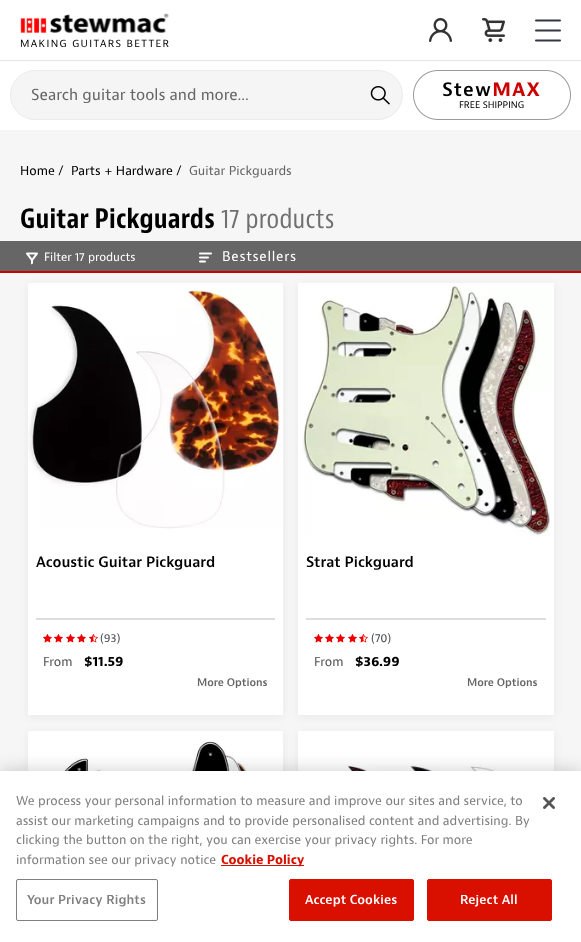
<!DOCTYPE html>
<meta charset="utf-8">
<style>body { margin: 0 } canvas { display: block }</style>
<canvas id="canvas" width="581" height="942"></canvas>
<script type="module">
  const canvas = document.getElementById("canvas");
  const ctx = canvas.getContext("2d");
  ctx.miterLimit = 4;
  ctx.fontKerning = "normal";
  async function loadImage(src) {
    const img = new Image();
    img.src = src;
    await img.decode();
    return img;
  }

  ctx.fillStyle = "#f6f6f6";
  ctx.fillRect(0, 0, 581, 942);
  ctx.fillStyle = "#ffffff";
  ctx.fillRect(0, 0, 581, 130);
  ctx.fillStyle = "#e6e6e6";
  ctx.fillRect(0, 60, 581, 1);
  ctx.drawImage(await loadImage("img1.png"), 20, 13, 149, 35);
  ctx.drawImage(await loadImage("img2.png"), 429, 18, 23, 24);
  ctx.drawImage(await loadImage("img3.png"), 482, 18, 23, 24);
  ctx.beginPath();
  ctx.moveTo(536, 20.5);
  ctx.lineTo(560, 20.5);
  ctx.moveTo(536, 30.5);
  ctx.lineTo(560, 30.5);
  ctx.moveTo(536, 40.5);
  ctx.lineTo(560, 40.5);
  ctx.strokeStyle = "#313641";
  ctx.lineWidth = 2;
  ctx.lineCap = "round";
  ctx.stroke();
  ctx.fillStyle = "#f5f5f5";
  ctx.beginPath();
  ctx.roundRect(10.5, 70.5, 392, 49, 24.5);
  ctx.fill();
  ctx.strokeStyle = "#ebebeb";
  ctx.lineWidth = 1;
  ctx.stroke();
  ctx.font = "16px 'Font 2'";
  ctx.fillStyle = "#666666";
  ctx.fillText("Search guitar tools and more...", 31, 100);
  ctx.drawImage(await loadImage("img4.png"), 370, 86, 20, 19);
  ctx.drawImage(await loadImage("img5.png"), 413, 70, 158, 50);
  ctx.font = "9.5px 'Font 2'";
  ctx.fillStyle = "#000000";
  ctx.fillText("FREE SHIPPING", 459, 108);
  ctx.font = "13px 'Font 2'";
  ctx.fillText("Home /", 20, 175);
  ctx.fillText("Parts + Hardware /", 71, 175);
  ctx.fillStyle = "#666666";
  ctx.fillText("Guitar Pickguards", 189, 175);
  ctx.letterSpacing = "0.25px";
  ctx.font = "bold 28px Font";
  ctx.fillStyle = "#000000";
  ctx.fillText("Guitar Pickguards", 20, 228);
  ctx.font = "28px Font";
  ctx.fillStyle = "#707070";
  ctx.fillText("17 products", 221, 228);
  ctx.fillStyle = "#666666";
  ctx.fillRect(0, 241, 581, 30);
  ctx.drawImage(await loadImage("img6.png"), 199, 252, 13, 11);
  ctx.letterSpacing = "0.75px";
  ctx.font = "14px 'Font 2'";
  ctx.fillStyle = "#ffffff";
  ctx.fillText("Bestsellers", 222, 261);
  ctx.fillStyle = "#cc0000";
  ctx.fillRect(0, 271, 581, 2);
  ctx.fillStyle = "rgba(0, 0, 0, 0.05)";
  ctx.filter = "blur(5px)";
  ctx.beginPath();
  ctx.rect(28, 285, 255, 432);
  ctx.fill();
  ctx.filter = "none";
  ctx.fillStyle = "#ffffff";
  ctx.fillRect(28, 283, 255, 432);
  ctx.drawImage(await loadImage("img7.png"), 28, 289, 253, 240);
  ctx.letterSpacing = "0px";
  ctx.font = "600 15px Font";
  ctx.fillStyle = "#000000";
  ctx.fillText("Acoustic Guitar Pickguard", 36, 567);
  ctx.fillStyle = "#dddddd";
  ctx.fillRect(36, 618, 239, 2);
  ctx.drawImage(await loadImage("img8.png"), 43, 634, 9, 9);
  ctx.drawImage(await loadImage("img8.png"), 54, 634, 9, 9);
  ctx.drawImage(await loadImage("img8.png"), 66, 634, 9, 9);
  ctx.drawImage(await loadImage("img8.png"), 77, 634, 9, 9);
  ctx.drawImage(await loadImage("img9.png"), 89, 634, 9, 9);
  ctx.font = "12px 'Font 2'";
  ctx.fillStyle = "#495057";
  ctx.fillText("(93)", 100, 642);
  ctx.font = "13px 'Font 2'";
  ctx.fillStyle = "#555555";
  ctx.fillText("From", 43, 666);
  ctx.font = "bold 14px 'Font 2'";
  ctx.fillStyle = "#000000";
  ctx.fillText("$11.59", 84, 666);
  ctx.font = "600 11px Font";
  ctx.fillStyle = "#666666";
  ctx.fillText("More Options", 197, 686);
  ctx.fillStyle = "rgba(0, 0, 0, 0.05)";
  ctx.filter = "blur(5px)";
  ctx.beginPath();
  ctx.rect(298, 285, 256, 432);
  ctx.fill();
  ctx.filter = "none";
  ctx.fillStyle = "#ffffff";
  ctx.fillRect(298, 283, 256, 432);
  ctx.drawImage(await loadImage("img10.png"), 302, 286, 248, 250);
  ctx.font = "600 15px Font";
  ctx.fillStyle = "#000000";
  ctx.fillText("Strat Pickguard", 306, 567);
  ctx.fillStyle = "#dddddd";
  ctx.fillRect(306, 618, 240, 2);
  ctx.drawImage(await loadImage("img8.png"), 314, 634, 9, 9);
  ctx.drawImage(await loadImage("img8.png"), 325, 634, 9, 9);
  ctx.drawImage(await loadImage("img8.png"), 336, 634, 9, 9);
  ctx.drawImage(await loadImage("img8.png"), 348, 634, 9, 9);
  ctx.drawImage(await loadImage("img9.png"), 359, 634, 9, 9);
  ctx.font = "12px 'Font 2'";
  ctx.fillStyle = "#495057";
  ctx.fillText("(70)", 371, 642);
  ctx.font = "13px 'Font 2'";
  ctx.fillStyle = "#555555";
  ctx.fillText("From", 314, 666);
  ctx.font = "bold 14px 'Font 2'";
  ctx.fillStyle = "#000000";
  ctx.fillText("$36.99", 355, 666);
  ctx.font = "600 11px Font";
  ctx.fillStyle = "#666666";
  ctx.fillText("More Options", 467, 686);
  ctx.fillStyle = "rgba(0, 0, 0, 0.05)";
  ctx.filter = "blur(5px)";
  ctx.beginPath();
  ctx.rect(28, 733, 255, 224);
  ctx.fill();
  ctx.filter = "none";
  ctx.fillStyle = "#ffffff";
  ctx.fillRect(28, 731, 255, 40);
  ctx.drawImage(await loadImage("img11.png"), 31, 741, 238, 30);
  ctx.fillStyle = "rgba(0, 0, 0, 0.05)";
  ctx.filter = "blur(5px)";
  ctx.beginPath();
  ctx.rect(298, 733, 256, 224);
  ctx.fill();
  ctx.filter = "none";
  ctx.fillStyle = "#ffffff";
  ctx.fillRect(298, 731, 256, 40);
  ctx.drawImage(await loadImage("img12.png"), 301, 764, 246, 7);
  ctx.drawImage(await loadImage("img13.png"), 26, 252, 12, 13);
  ctx.font = "12px 'Font 2'";
  ctx.fillText("Filter 17 products", 44, 261);
  ctx.fillStyle = "rgba(0, 0, 0, 0.2)";
  ctx.filter = "blur(9px)";
  ctx.beginPath();
  ctx.rect(0, 771, 581, 171);
  ctx.fill();
  ctx.filter = "none";
  ctx.fillStyle = "#ffffff";
  ctx.fillRect(0, 771, 581, 171);
  ctx.font = "13px 'Font 2'";
  ctx.fillStyle = "#7f7f7f";
  ctx.fillText("We process your personal information to measure and improve our sites and service, to", 16, 805);
  ctx.fillText("assist our marketing campaigns and to provide personalised content and advertising. By", 16, 825);
  ctx.fillText("clicking the button on the right, you can exercise your privacy rights. For more", 16, 844);
  ctx.fillText("information see our privacy notice", 16, 864);
  ctx.fillStyle = "#d91000";
  ctx.fillRect(221, 865, 83, 1);
  ctx.font = "bold 13px 'Font 2'";
  ctx.fillText("Cookie Policy", 221, 864);
  ctx.beginPath();
  ctx.roundRect(16.5, 879.5, 141, 41, 1.5);
  ctx.strokeStyle = "#7f7f7f";
  ctx.stroke();
  ctx.letterSpacing = "0.1px";
  ctx.font = "600 13px Font";
  ctx.fillStyle = "#7f7f7f";
  ctx.fillText("Your Privacy Rights", 27, 904);
  ctx.fillStyle = "#d91000";
  ctx.beginPath();
  ctx.roundRect(289.5, 879.5, 124, 41, 1.5);
  ctx.fill();
  ctx.strokeStyle = "#d91000";
  ctx.stroke();
  ctx.fillStyle = "#ffffff";
  ctx.fillText("Accept Cookies", 305, 904);
  ctx.fillStyle = "#d91000";
  ctx.beginPath();
  ctx.roundRect(427.5, 879.5, 124, 41, 1.5);
  ctx.fill();
  ctx.stroke();
  ctx.fillStyle = "#ffffff";
  ctx.fillText("Reject All", 460, 904);
  ctx.drawImage(await loadImage("img14.png"), 543, 797, 12, 12);
</script>
